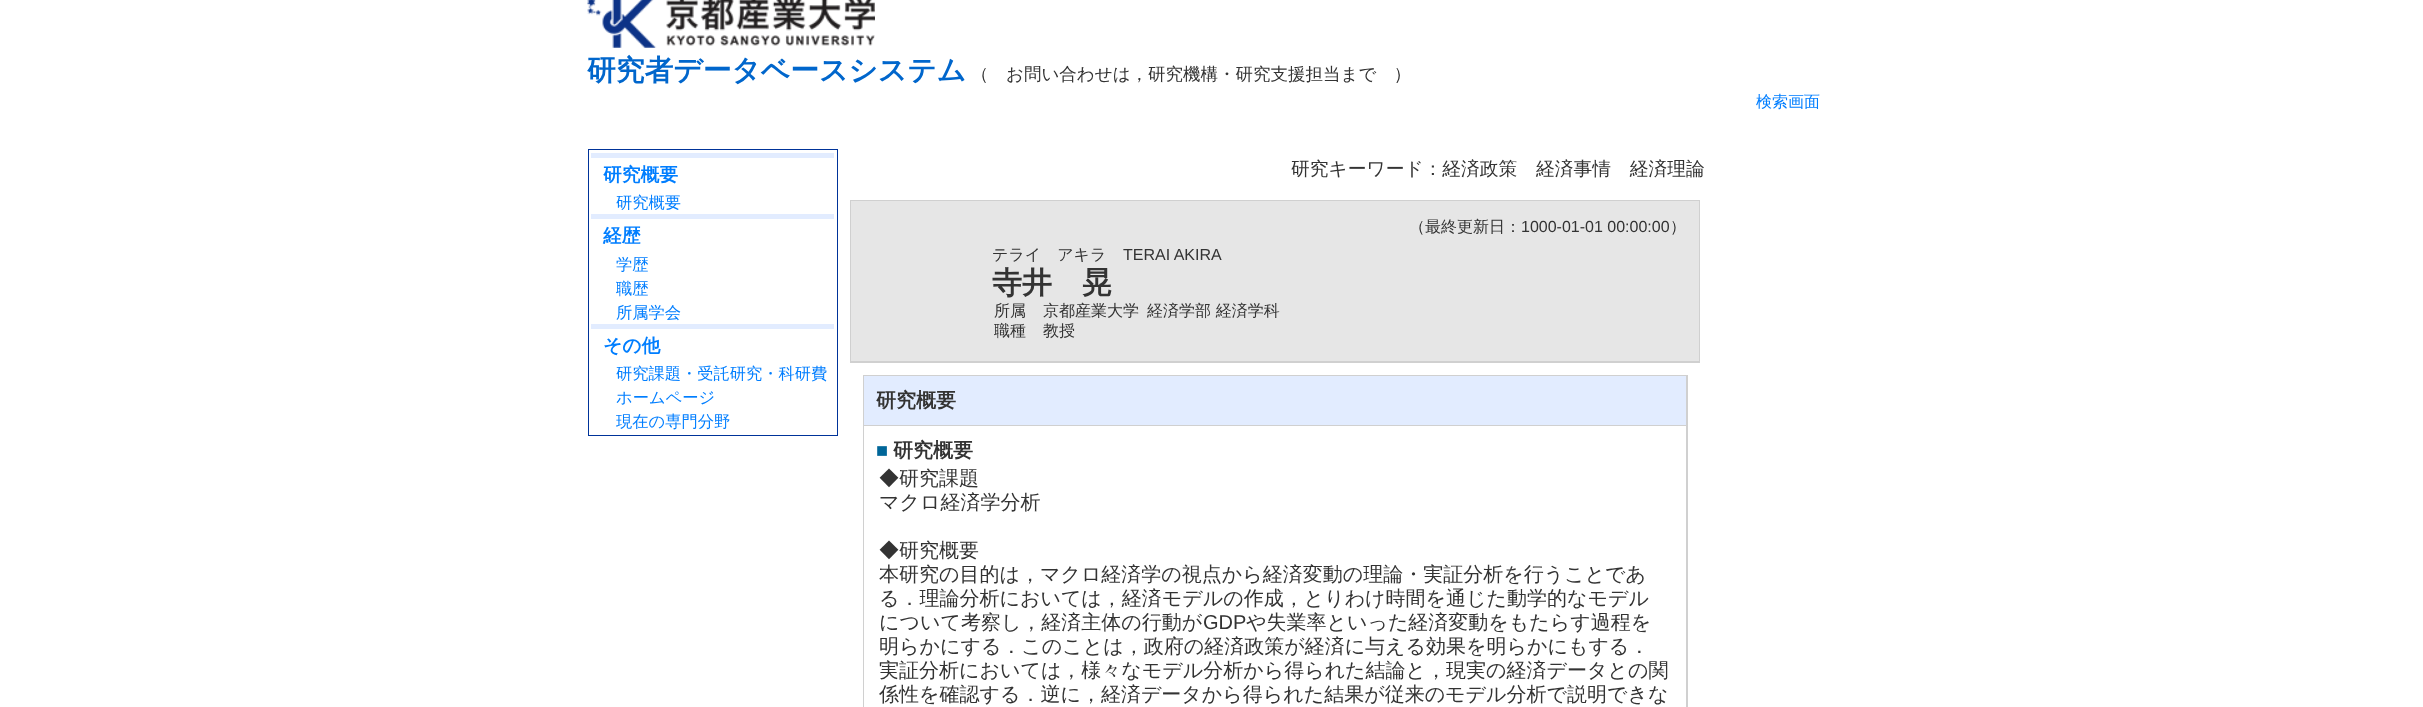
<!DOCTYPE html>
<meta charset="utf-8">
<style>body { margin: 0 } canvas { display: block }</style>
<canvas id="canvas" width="2423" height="707"></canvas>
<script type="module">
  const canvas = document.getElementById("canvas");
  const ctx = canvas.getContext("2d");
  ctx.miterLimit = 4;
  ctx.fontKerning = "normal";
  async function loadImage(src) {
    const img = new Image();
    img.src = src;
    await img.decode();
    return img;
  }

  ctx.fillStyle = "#ffffff";
  ctx.fillRect(0, 0, 2423, 707);
  ctx.drawImage(await loadImage("img1.png"), 587, 0, 288, 48);
  ctx.font = "bold 28.75px WenQuanYi Zen Hei";
  ctx.fillStyle = "#0066cc";
  ctx.fillText("研究者データベースシステム", 587, 80);
  ctx.font = "500 17.5px WenQuanYi Zen Hei";
  ctx.fillStyle = "#333333";
  ctx.fillText("（　お問い合わせは，研究機構・研究支援担当まで　）", 971, 80);
  ctx.font = "500 16px WenQuanYi Zen Hei";
  ctx.fillStyle = "#007eff";
  ctx.fillText("検索画面", 1756, 107);
  ctx.strokeStyle = "#003399";
  ctx.strokeRect(588.5, 149.5, 249, 286);
  ctx.fillStyle = "#e2ecff";
  ctx.fillRect(591, 153, 243, 5);
  ctx.font = "bold 18.75px WenQuanYi Zen Hei";
  ctx.fillStyle = "#007eff";
  ctx.fillText("研究概要", 603, 181);
  ctx.font = "500 16.25px WenQuanYi Zen Hei";
  ctx.fillText("研究概要", 616, 208);
  ctx.fillStyle = "#e2ecff";
  ctx.fillRect(591, 214, 243, 5);
  ctx.font = "bold 18.75px WenQuanYi Zen Hei";
  ctx.fillStyle = "#007eff";
  ctx.fillText("経歴", 603, 242);
  ctx.font = "500 16.25px WenQuanYi Zen Hei";
  ctx.fillText("学歴", 616, 270);
  ctx.fillText("職歴", 616, 294);
  ctx.fillText("所属学会", 616, 318);
  ctx.fillStyle = "#e2ecff";
  ctx.fillRect(591, 324, 243, 5);
  ctx.font = "bold 18.75px WenQuanYi Zen Hei";
  ctx.fillStyle = "#007eff";
  ctx.fillText("その他", 603, 352);
  ctx.font = "500 16.25px WenQuanYi Zen Hei";
  ctx.fillText("研究課題・受託研究・科研費", 616, 379);
  ctx.fillText("ホームページ", 616, 403);
  ctx.fillText("現在の専門分野", 616, 427);
  ctx.font = "500 18.75px WenQuanYi Zen Hei";
  ctx.fillStyle = "#333333";
  ctx.fillText("研究キーワード：経済政策　経済事情　経済理論", 1291, 175);
  ctx.fillStyle = "#d0d0d0";
  ctx.fillRect(850, 200, 850, 163);
  ctx.fillStyle = "#e6e6e6";
  ctx.fillRect(851, 201, 848, 160);
  ctx.font = "500 16px WenQuanYi Zen Hei";
  ctx.fillStyle = "#333333";
  ctx.fillText("（最終更新日：", 1409, 232);
  ctx.font = "16px Liberation Sans";
  ctx.fillText("1000-01-01 00:00:00", 1521, 232);
  ctx.font = "500 16px WenQuanYi Zen Hei";
  ctx.fillText("）", 1670, 232);
  ctx.fillText("テライ　アキラ", 992, 260);
  ctx.font = "16px Liberation Sans";
  ctx.fillText("TERAI AKIRA", 1123, 260);
  ctx.font = "bold 30px WenQuanYi Zen Hei";
  ctx.fillText("寺井　晃", 992, 293);
  ctx.font = "500 16px WenQuanYi Zen Hei";
  ctx.fillText("所属", 994, 316);
  ctx.fillText("京都産業大学", 1043, 316);
  ctx.fillText("経済学部 経済学科", 1147, 316);
  ctx.fillText("職種", 994, 336);
  ctx.fillText("教授", 1043, 336);
  ctx.fillStyle = "#d0d0d0";
  ctx.fillRect(863, 375, 825, 332);
  ctx.fillStyle = "#e2ecff";
  ctx.fillRect(864, 376, 822, 49);
  ctx.font = "bold 20px WenQuanYi Zen Hei";
  ctx.fillStyle = "#333333";
  ctx.fillText("研究概要", 876, 407);
  ctx.fillStyle = "#ffffff";
  ctx.fillRect(864, 426, 822, 281);
  ctx.font = "20px Liberation Sans";
  ctx.fillStyle = "#006699";
  ctx.fillText("■", 876, 457);
  ctx.font = "bold 20px WenQuanYi Zen Hei";
  ctx.fillStyle = "#333333";
  ctx.fillText("研究概要", 893, 457);
  ctx.font = "500 20px WenQuanYi Zen Hei";
  ctx.fillText("◆研究課題", 879, 485);
  ctx.fillText("マクロ経済学分析", 879, 509);
  ctx.fillText("◆研究概要", 879, 557);
  ctx.fillText("本研究の目的は，マクロ経済学の視点から経済変動の理論・実証分析を行うことであ", 879, 581);
  ctx.fillText("る．理論分析においては，経済モデルの作成，とりわけ時間を通じた動学的なモデル", 879, 605);
  ctx.fillText("について考察し，経済主体の行動が", 879, 629);
  ctx.font = "20px Liberation Sans";
  ctx.fillText("GDP", 1203, 629);
  ctx.font = "500 20px WenQuanYi Zen Hei";
  ctx.fillText("や失業率といった経済変動をもたらす過程を", 1246, 629);
  ctx.fillText("明らかにする．このことは，政府の経済政策が経済に与える効果を明らかにもする．", 879, 653);
  ctx.fillText("実証分析においては，様々なモデル分析から得られた結論と，現実の経済データとの関", 879, 677);
  ctx.fillText("係性を確認する．逆に，経済データから得られた結果が従来のモデル分析で説明できな", 879, 701);
</script>
